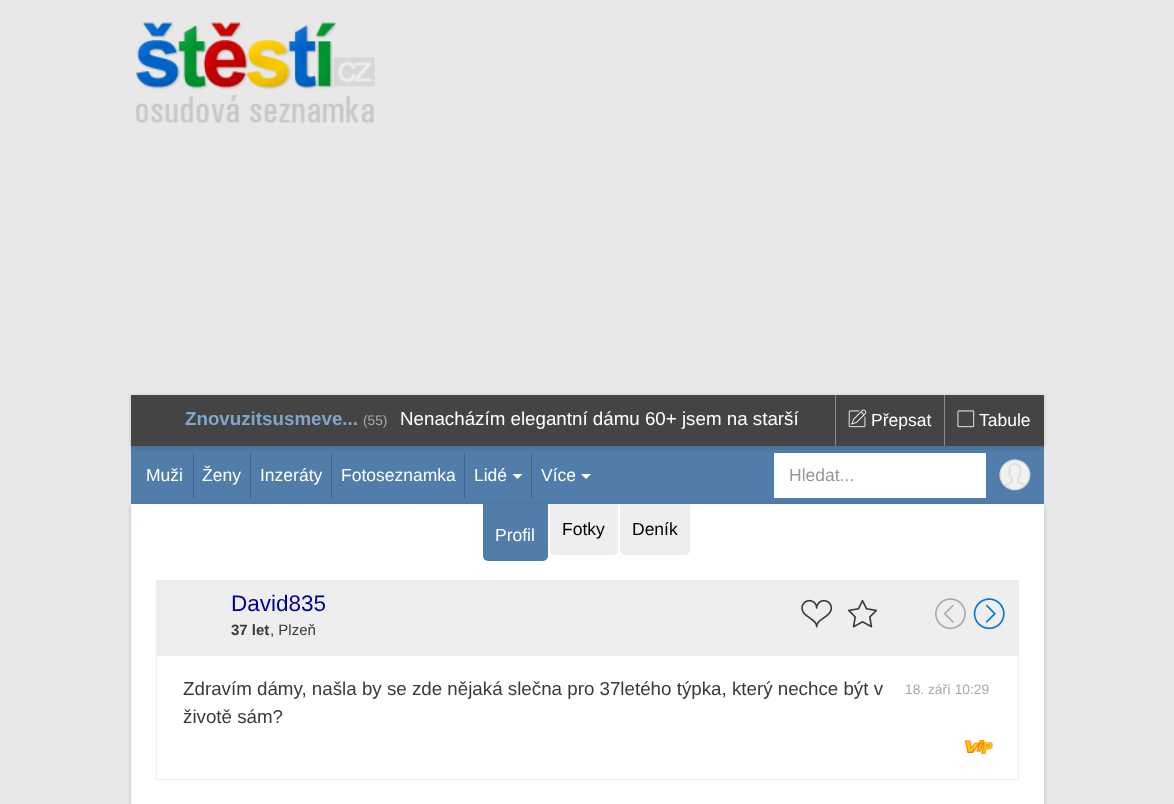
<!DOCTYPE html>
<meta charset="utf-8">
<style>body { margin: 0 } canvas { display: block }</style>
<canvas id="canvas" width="1174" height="804"></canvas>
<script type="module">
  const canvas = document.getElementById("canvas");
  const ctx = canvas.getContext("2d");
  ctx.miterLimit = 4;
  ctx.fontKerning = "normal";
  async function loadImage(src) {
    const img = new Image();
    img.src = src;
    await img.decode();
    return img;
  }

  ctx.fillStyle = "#e8e8e8";
  ctx.fillRect(0, 0, 1174, 804);
  ctx.drawImage(await loadImage("img1.png"), 135, 22, 240, 101);
  ctx.fillStyle = "#507da9";
  ctx.fillRect(131, 446, 913, 58);
  ctx.fillStyle = "#436280";
  ctx.fillRect(193, 453, 1, 45);
  ctx.fillRect(250, 453, 1, 45);
  ctx.fillRect(331, 453, 1, 45);
  ctx.fillStyle = "#ffffff";
  ctx.fillRect(774, 453, 212, 45);
  ctx.fillStyle = "rgba(30, 30, 30, 0.2)";
  ctx.filter = "blur(2px)";
  ctx.beginPath();
  ctx.rect(131, 396, 913, 52);
  ctx.fill();
  ctx.filter = "none";
  ctx.fillStyle = "#444444";
  ctx.fillRect(131, 395, 913, 51);
  ctx.font = "bold 18.75px Liberation Sans";
  ctx.fillStyle = "#80a6cc";
  ctx.fillText("Znovuzitsusmeve...", 185, 425);
  ctx.font = "13.75px Liberation Sans";
  ctx.fillStyle = "#aaaaaa";
  ctx.fillText("(55)", 363, 425);
  ctx.font = "18.75px Liberation Sans";
  ctx.fillStyle = "#ffffff";
  ctx.fillText("Nenacházím elegantní dámu 60+ jsem na starší", 400, 425);
  ctx.fillStyle = "#888888";
  ctx.fillRect(835, 395, 1, 51);
  ctx.drawImage(await loadImage("img2.png"), 848, 409, 19, 19);
  ctx.font = "17.5px Liberation Sans";
  ctx.fillStyle = "#ffffff";
  ctx.fillText("Přepsat", 871, 426);
  ctx.fillStyle = "#888888";
  ctx.fillRect(944, 395, 1, 51);
  ctx.drawImage(await loadImage("img3.png"), 957, 410, 18, 18);
  ctx.fillStyle = "#ffffff";
  ctx.fillText("Tabule", 979, 426);
  ctx.fillText("Muži", 146, 481);
  ctx.fillText("Ženy", 202, 481);
  ctx.fillText("Inzeráty", 260, 481);
  ctx.fillText("Fotoseznamka", 341, 481);
  ctx.fillStyle = "#436280";
  ctx.fillRect(464, 453, 1, 45);
  ctx.fillStyle = "#ffffff";
  ctx.fillText("Lidé", 474, 481);
  ctx.beginPath();
  ctx.moveTo(512.5, 474);
  ctx.lineTo(522.5, 474);
  ctx.lineTo(517.5, 479);
  ctx.closePath();
  ctx.fill();
  ctx.fillStyle = "#436280";
  ctx.fillRect(531, 453, 1, 45);
  ctx.fillStyle = "#ffffff";
  ctx.fillText("Více", 541, 481);
  ctx.beginPath();
  ctx.moveTo(581, 474);
  ctx.lineTo(591, 474);
  ctx.lineTo(586, 479);
  ctx.closePath();
  ctx.fill();
  ctx.fillStyle = "#999999";
  ctx.fillText("Hledat...", 789, 481);
  ctx.drawImage(await loadImage("img4.png"), 999, 459, 32, 32);
  ctx.fillStyle = "rgba(30, 30, 30, 0.2)";
  ctx.filter = "blur(2px)";
  ctx.beginPath();
  ctx.rect(131, 505, 913, 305);
  ctx.fill();
  ctx.filter = "none";
  ctx.fillStyle = "#ffffff";
  ctx.fillRect(131, 504, 913, 300);
  ctx.fillStyle = "#507da9";
  ctx.beginPath();
  ctx.roundRect(483, 504, 65, 57, [0, 0, 5, 5]);
  ctx.fill();
  ctx.fillStyle = "#ffffff";
  ctx.fillText("Profil", 495, 541);
  ctx.fillStyle = "#eeeeee";
  ctx.beginPath();
  ctx.roundRect(550, 504, 68, 51, [0, 0, 5, 5]);
  ctx.fill();
  ctx.fillStyle = "#000000";
  ctx.fillText("Fotky", 562, 535);
  ctx.fillStyle = "#eeeeee";
  ctx.beginPath();
  ctx.roundRect(620, 504, 70, 51, [0, 0, 5, 5]);
  ctx.fill();
  ctx.fillStyle = "#000000";
  ctx.fillText("Deník", 632, 535);
  ctx.fillStyle = "#eeeeee";
  ctx.fillRect(156, 580, 863, 75);
  ctx.font = "22.5px Liberation Sans";
  ctx.fillStyle = "#000099";
  ctx.fillText("David835", 231, 611);
  ctx.font = "bold 15px Liberation Sans";
  ctx.fillStyle = "#373a3c";
  ctx.fillText("37 let", 231, 635);
  ctx.font = "15px Liberation Sans";
  ctx.fillText(", Plzeň", 270, 635);
  ctx.drawImage(await loadImage("img5.png"), 801, 599, 32, 29);
  ctx.drawImage(await loadImage("img6.png"), 847, 599, 31, 29);
  ctx.drawImage(await loadImage("img7.png"), 935, 598, 31, 32);
  ctx.drawImage(await loadImage("img8.png"), 973, 598, 32, 32);
  ctx.strokeStyle = "#eeeeee";
  ctx.strokeRect(156.5, 655.5, 862, 124);
  ctx.font = "18.75px Liberation Sans";
  ctx.fillText("Zdravím dámy, našla by se zde nějaká slečna pro 37letého týpka, který nechce být v", 183, 695);
  ctx.fillText("životě sám?", 183, 723);
  ctx.font = "13.75px Liberation Sans";
  ctx.fillStyle = "#aaaaaa";
  ctx.fillText("18. září 10:29", 905, 694);
  ctx.drawImage(await loadImage("img9.png"), 965, 740, 28, 14);
</script>
